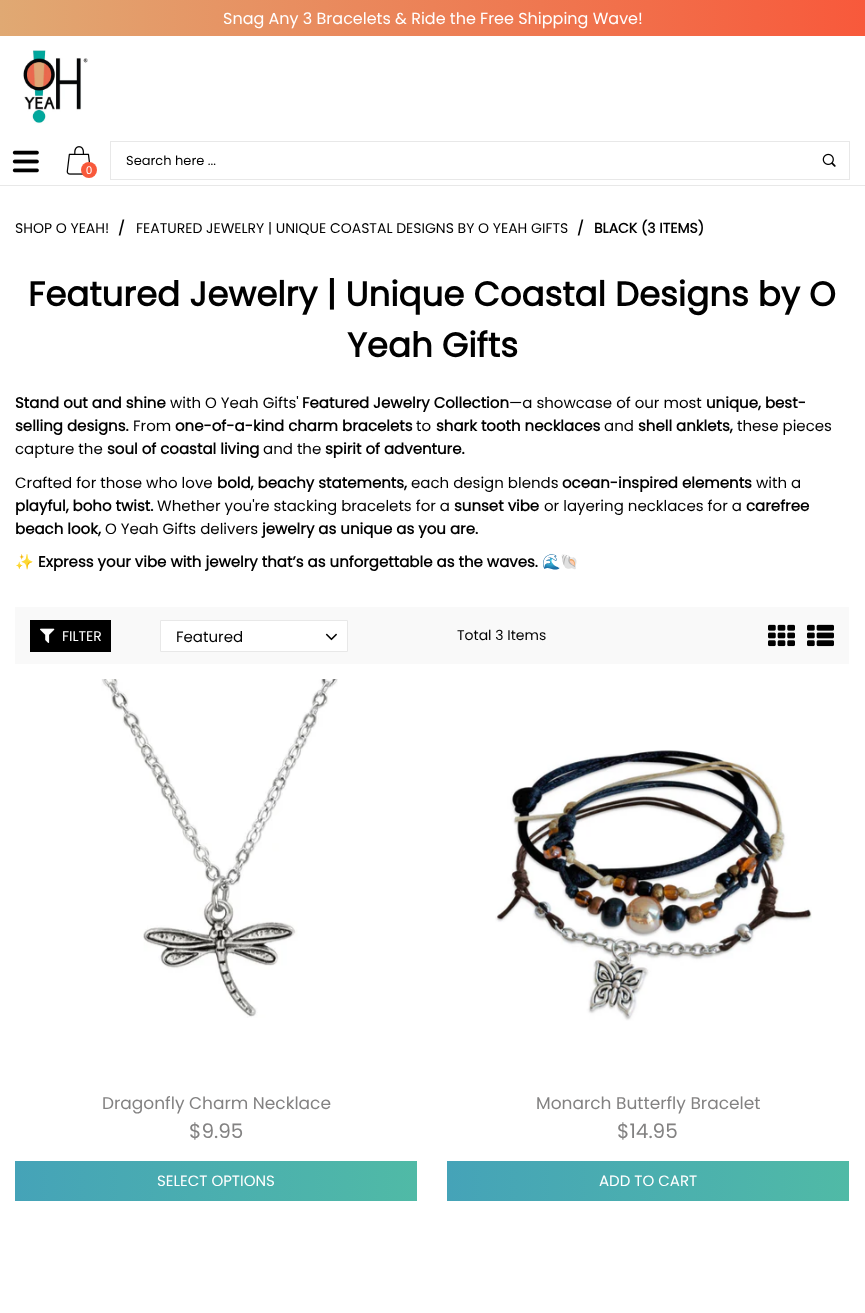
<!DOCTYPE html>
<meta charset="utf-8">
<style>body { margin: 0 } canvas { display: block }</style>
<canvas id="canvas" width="865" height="1313"></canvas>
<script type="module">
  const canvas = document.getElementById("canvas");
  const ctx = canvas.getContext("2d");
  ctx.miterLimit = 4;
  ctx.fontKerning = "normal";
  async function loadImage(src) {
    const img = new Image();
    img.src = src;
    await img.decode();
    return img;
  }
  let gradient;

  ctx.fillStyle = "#ffffff";
  ctx.fillRect(0, 0, 865, 1313);
  gradient = ctx.createLinearGradient(0, 18, 865, 18);
  gradient.addColorStop(0, "#e0a973");
  gradient.addColorStop(1, "#f8593b");
  ctx.fillStyle = gradient;
  ctx.fillRect(0, 0, 865, 36);
  ctx.font = "16px Poppins";
  ctx.fillStyle = "#ffffff";
  ctx.fillText("Snag Any 3 Bracelets & Ride the Free Shipping Wave!", 223, 24);
  ctx.drawImage(await loadImage("img1.png"), 23, 50, 65, 74);
  ctx.drawImage(await loadImage("img2.png"), 12, 150, 27, 23);
  ctx.strokeStyle = "#e8e8e8";
  ctx.strokeRect(110.5, 141.5, 739, 38);
  ctx.font = "13px Poppins";
  ctx.fillStyle = "#000000";
  ctx.fillText("Search here ...", 126, 165);
  ctx.drawImage(await loadImage("img3.png"), 822, 153, 14, 14);
  ctx.drawImage(await loadImage("img4.png"), 66, 146, 25, 29);
  ctx.fillStyle = "#f8593b";
  ctx.beginPath();
  ctx.arc(89, 170, 8, 0, Math.PI * 2);
  ctx.fill();
  ctx.font = "11px Liberation Sans";
  ctx.fillStyle = "#ffffff";
  ctx.fillText("0", 86, 174);
  ctx.fillStyle = "#e8e8e8";
  ctx.fillRect(0, 185, 865, 1);
  ctx.font = "14px Poppins";
  ctx.fillStyle = "#000000";
  ctx.fillText("SHOP O YEAH!", 15, 233);
  ctx.font = "bold 14px Poppins";
  ctx.fillText("/", 118, 233);
  ctx.font = "14px Poppins";
  ctx.fillText("FEATURED JEWELRY | UNIQUE COASTAL DESIGNS BY O YEAH GIFTS", 136, 233);
  ctx.font = "bold 14px Poppins";
  ctx.fillText("/", 577, 233);
  ctx.fillText("BLACK (3 ITEMS)", 594, 233);
  ctx.font = "bold 34px Poppins";
  ctx.fillText("Featured Jewelry | Unique Coastal Designs by O", 28, 306);
  ctx.fillText("Yeah Gifts", 347, 357);
  ctx.font = "bold 15px Poppins";
  ctx.fillText("Stand out and shine", 15, 408);
  ctx.font = "15px Poppins";
  ctx.fillText("with O Yeah Gifts'", 170, 408);
  ctx.font = "bold 15px Poppins";
  ctx.fillText("Featured Jewelry Collection", 302, 408);
  ctx.font = "15px Poppins";
  ctx.fillText("—a showcase of our most", 509, 408);
  ctx.font = "bold 15px Poppins";
  ctx.fillText("unique, best-", 706, 408);
  ctx.fillText("selling designs.", 15, 431);
  ctx.font = "15px Poppins";
  ctx.fillText("From", 133, 431);
  ctx.font = "bold 15px Poppins";
  ctx.fillText("one-of-a-kind charm bracelets", 175, 431);
  ctx.font = "15px Poppins";
  ctx.fillText("to", 416, 431);
  ctx.font = "bold 15px Poppins";
  ctx.fillText("shark tooth necklaces", 436, 431);
  ctx.font = "15px Poppins";
  ctx.fillText("and", 604, 431);
  ctx.font = "bold 15px Poppins";
  ctx.fillText("shell anklets,", 638, 431);
  ctx.font = "15px Poppins";
  ctx.fillText("these pieces", 737, 431);
  ctx.fillText("capture the", 15, 454);
  ctx.font = "bold 15px Poppins";
  ctx.fillText("soul of coastal living", 107, 454);
  ctx.font = "15px Poppins";
  ctx.fillText("and the", 263, 454);
  ctx.font = "bold 15px Poppins";
  ctx.fillText("spirit of adventure.", 325, 454);
  ctx.font = "15px Poppins";
  ctx.fillText("Crafted for those who love", 15, 488);
  ctx.font = "bold 15px Poppins";
  ctx.fillText("bold, beachy statements,", 217, 488);
  ctx.font = "15px Poppins";
  ctx.fillText("each design blends", 411, 488);
  ctx.font = "bold 15px Poppins";
  ctx.fillText("ocean-inspired elements", 562, 488);
  ctx.font = "15px Poppins";
  ctx.fillText("with a", 756, 488);
  ctx.font = "bold 15px Poppins";
  ctx.fillText("playful, boho twist.", 15, 511);
  ctx.font = "15px Poppins";
  ctx.fillText("Whether you're stacking bracelets for a", 157, 511);
  ctx.font = "bold 15px Poppins";
  ctx.fillText("sunset vibe", 454, 511);
  ctx.font = "15px Poppins";
  ctx.fillText("or layering necklaces for a", 544, 511);
  ctx.font = "bold 15px Poppins";
  ctx.fillText("carefree", 746, 511);
  ctx.fillText("beach look,", 15, 534);
  ctx.font = "15px Poppins";
  ctx.fillText("O Yeah Gifts delivers", 105, 534);
  ctx.font = "bold 15px Poppins";
  ctx.fillText("jewelry as unique as you are.", 262, 534);
  ctx.font = "15px Noto Color Emoji";
  ctx.fillText("✨", 15, 567);
  ctx.font = "bold 15px Poppins";
  ctx.fillText("Express your vibe with jewelry that’s as unforgettable as the waves.", 38, 567);
  ctx.font = "15px Noto Color Emoji";
  ctx.fillText("🌊🐚", 542, 567);
  ctx.fillStyle = "#f9f9f9";
  ctx.fillRect(15, 607, 834, 57);
  ctx.fillStyle = "#000000";
  ctx.fillRect(30, 620, 81, 32);
  ctx.drawImage(await loadImage("img5.png"), 40, 628, 15, 15);
  ctx.font = "14px Poppins";
  ctx.fillStyle = "#ffffff";
  ctx.fillText("FILTER", 62, 641);
  ctx.beginPath();
  ctx.rect(160.5, 620.5, 187, 31);
  ctx.fill();
  ctx.stroke();
  ctx.font = "15px Poppins";
  ctx.fillStyle = "#000000";
  ctx.fillText("Featured", 176, 642);
  ctx.drawImage(await loadImage("img6.png"), 325, 633, 12, 8);
  ctx.font = "14px Poppins";
  ctx.fillText("Total 3 Items", 457, 640);
  ctx.drawImage(await loadImage("img7.png"), 768, 624, 27, 23);
  ctx.drawImage(await loadImage("img8.png"), 807, 624, 27, 23);
  ctx.drawImage(await loadImage("img9.png"), 101, 679, 237, 339);
  ctx.font = "17px Poppins";
  ctx.fillStyle = "#838282";
  ctx.fillText("Dragonfly Charm Necklace", 102, 1109);
  ctx.font = "20px Poppins";
  ctx.fillText("$9.95", 189, 1138);
  gradient = ctx.createLinearGradient(15, 1181, 417, 1181);
  gradient.addColorStop(0, "#45a3b8");
  gradient.addColorStop(1, "#50baa6");
  ctx.fillStyle = gradient;
  ctx.fillRect(15, 1161, 402, 40);
  ctx.font = "15px Poppins";
  ctx.fillStyle = "#ffffff";
  ctx.fillText("SELECT OPTIONS", 157, 1186);
  ctx.drawImage(await loadImage("img10.png"), 495, 750, 317, 271);
  ctx.font = "17px Poppins";
  ctx.fillStyle = "#838282";
  ctx.fillText("Monarch Butterfly Bracelet", 536, 1109);
  ctx.font = "20px Poppins";
  ctx.fillText("$14.95", 617, 1138);
  gradient = ctx.createLinearGradient(447, 1181, 849, 1181);
  gradient.addColorStop(0, "#45a3b8");
  gradient.addColorStop(1, "#50baa6");
  ctx.fillStyle = gradient;
  ctx.fillRect(447, 1161, 402, 40);
  ctx.font = "15px Poppins";
  ctx.fillStyle = "#ffffff";
  ctx.fillText("ADD TO CART", 599, 1186);
</script>
